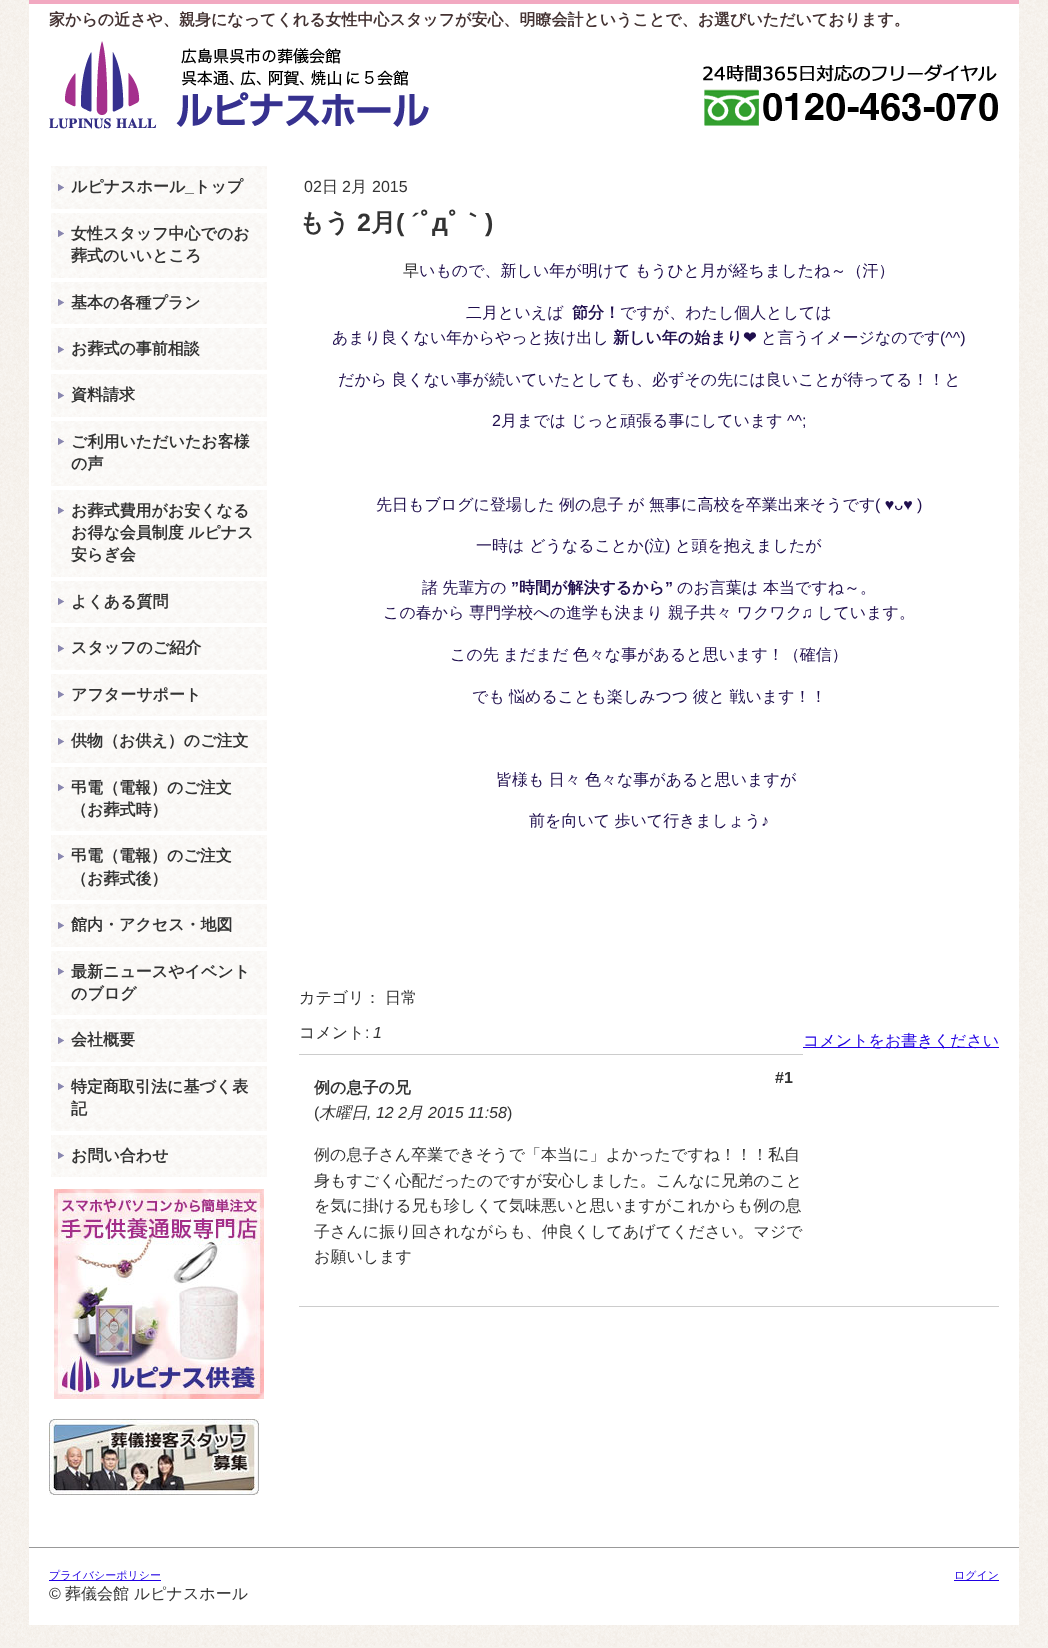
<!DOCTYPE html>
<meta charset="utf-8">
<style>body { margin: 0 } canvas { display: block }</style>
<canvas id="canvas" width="1048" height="1648"></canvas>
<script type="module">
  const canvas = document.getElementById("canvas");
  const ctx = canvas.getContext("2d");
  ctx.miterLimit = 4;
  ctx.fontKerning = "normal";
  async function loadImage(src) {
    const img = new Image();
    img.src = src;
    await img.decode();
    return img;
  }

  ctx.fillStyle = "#f6f2ed";
  ctx.fillRect(0, 0, 1048, 1648);
  ctx.drawImage(await loadImage("img1.png"), 0, 0, 1048, 1647);
  ctx.fillStyle = "#ffffff";
  ctx.fillRect(29, 4, 990, 1543);
  ctx.fillStyle = "#f2a9c1";
  ctx.fillRect(29, 0, 990, 4);
  ctx.font = "bold 16px WenQuanYi Zen Hei";
  ctx.fillStyle = "#443333";
  ctx.fillText("家からの近さや、親身になってくれる女性中心スタッフが安心、明瞭会計ということで、お選びいただいております。", 49, 25);
  ctx.drawImage(await loadImage("img2.png"), 49, 41, 380, 88);
  ctx.drawImage(await loadImage("img3.png"), 703, 64, 295, 62);
  ctx.drawImage(await loadImage("img4.png"), 51, 166, 216, 1011);
  ctx.drawImage(await loadImage("img5.png"), 58, 184, 6, 7);
  ctx.strokeStyle = "#ffffff";
  ctx.lineWidth = 2;
  ctx.strokeRect(50, 165, 218, 45);
  ctx.fillStyle = "#333333";
  ctx.fillText("ルピナスホール", 71, 192);
  ctx.font = "bold 16px Liberation Sans";
  ctx.fillText("_", 185, 192);
  ctx.font = "bold 16px WenQuanYi Zen Hei";
  ctx.fillText("トップ", 194, 192);
  ctx.drawImage(await loadImage("img5.png"), 58, 230, 6, 7);
  ctx.strokeRect(50, 212, 218, 67);
  ctx.fillText("女性スタッフ中心でのお", 71, 239);
  ctx.fillText("葬式のいいところ", 71, 261);
  ctx.drawImage(await loadImage("img5.png"), 58, 299, 6, 7);
  ctx.strokeRect(50, 281, 218, 44);
  ctx.fillText("基本の各種プラン", 71, 308);
  ctx.drawImage(await loadImage("img5.png"), 58, 346, 6, 7);
  ctx.strokeRect(50, 327, 218, 44);
  ctx.fillText("お葬式の事前相談", 71, 354);
  ctx.drawImage(await loadImage("img5.png"), 58, 392, 6, 7);
  ctx.strokeRect(50, 373, 218, 45);
  ctx.fillText("資料請求", 71, 400);
  ctx.drawImage(await loadImage("img5.png"), 58, 438, 6, 7);
  ctx.strokeRect(50, 420, 218, 67);
  ctx.fillText("ご利用いただいたお客様", 71, 447);
  ctx.fillText("の声", 71, 469);
  ctx.drawImage(await loadImage("img5.png"), 58, 507, 6, 7);
  ctx.strokeRect(50, 489, 218, 89);
  ctx.fillText("お葬式費用がお安くなる", 71, 516);
  ctx.wordSpacing = "-0.5px";
  ctx.fillText("お得な会員制度 ルピナス", 71, 538);
  ctx.wordSpacing = "0px";
  ctx.fillText("安らぎ会", 71, 560);
  ctx.drawImage(await loadImage("img5.png"), 58, 598, 6, 7);
  ctx.strokeRect(50, 580, 218, 44);
  ctx.fillText("よくある質問", 71, 607);
  ctx.drawImage(await loadImage("img5.png"), 58, 645, 6, 7);
  ctx.strokeRect(50, 626, 218, 45);
  ctx.fillText("スタッフのご紹介", 71, 653);
  ctx.drawImage(await loadImage("img5.png"), 58, 691, 6, 7);
  ctx.strokeRect(50, 673, 218, 44);
  ctx.fillText("アフターサポート", 71, 700);
  ctx.drawImage(await loadImage("img5.png"), 58, 738, 6, 7);
  ctx.strokeRect(50, 719, 218, 45);
  ctx.fillText("供物（お供え）のご注文", 71, 746);
  ctx.drawImage(await loadImage("img5.png"), 58, 784, 6, 7);
  ctx.strokeRect(50, 766, 218, 66);
  ctx.fillText("弔電（電報）のご注文", 71, 793);
  ctx.fillText("（お葬式時）", 71, 815);
  ctx.drawImage(await loadImage("img5.png"), 58, 853, 6, 7);
  ctx.strokeRect(50, 834, 218, 67);
  ctx.fillText("弔電（電報）のご注文", 71, 861);
  ctx.fillText("（お葬式後）", 71, 884);
  ctx.drawImage(await loadImage("img5.png"), 58, 922, 6, 7);
  ctx.strokeRect(50, 903, 218, 45);
  ctx.fillText("館内・アクセス・地図", 71, 930);
  ctx.drawImage(await loadImage("img5.png"), 58, 968, 6, 7);
  ctx.strokeRect(50, 950, 218, 66);
  ctx.fillText("最新ニュースやイベント", 71, 977);
  ctx.fillText("のブログ", 71, 999);
  ctx.drawImage(await loadImage("img5.png"), 58, 1037, 6, 7);
  ctx.strokeRect(50, 1018, 218, 45);
  ctx.fillText("会社概要", 71, 1045);
  ctx.drawImage(await loadImage("img5.png"), 58, 1083, 6, 7);
  ctx.strokeRect(50, 1065, 218, 67);
  ctx.fillText("特定商取引法に基づく表", 71, 1092);
  ctx.fillText("記", 71, 1114);
  ctx.drawImage(await loadImage("img5.png"), 58, 1152, 6, 7);
  ctx.strokeRect(50, 1134, 218, 44);
  ctx.fillText("お問い合わせ", 71, 1161);
  ctx.drawImage(await loadImage("img6.png"), 54, 1189, 210, 210);
  ctx.drawImage(await loadImage("img7.png"), 49, 1419, 210, 76);
  ctx.font = "16px Liberation Sans";
  ctx.fillText("02", 304, 192);
  ctx.font = "500 16px WenQuanYi Zen Hei";
  ctx.fillText("日", 322, 192);
  ctx.font = "16px Liberation Sans";
  ctx.fillText("2", 342, 192);
  ctx.font = "500 16px WenQuanYi Zen Hei";
  ctx.fillText("月", 351, 192);
  ctx.font = "16px Liberation Sans";
  ctx.fillText("2015", 372, 192);
  ctx.font = "bold 25px WenQuanYi Zen Hei";
  ctx.fillText("もう", 299, 231);
  ctx.font = "bold 25px Liberation Sans";
  ctx.fillText("2", 357, 231);
  ctx.font = "bold 25px WenQuanYi Zen Hei";
  ctx.fillText("月", 371, 231);
  ctx.font = "bold 25px Liberation Sans";
  ctx.fillText("( ´", 396, 231);
  ctx.font = "bold 25px IPAPGothic";
  ctx.fillText("ﾟ", 420, 231);
  ctx.fillText("ﾟ", 448, 231);
  ctx.font = "bold 25px WenQuanYi Zen Hei";
  ctx.fillText("｀", 460, 231);
  ctx.font = "bold 25px Liberation Sans";
  ctx.fillText(")", 485, 231);
  ctx.fillText("д", 432, 231);
  ctx.font = "500 16px WenQuanYi Zen Hei";
  ctx.fillText("早", 403, 276);
  ctx.wordSpacing = "-0.5px";
  ctx.fillStyle = "#1f0e4d";
  ctx.fillText("いもので、新しい年が明けて もうひと月が経ちましたね～（汗）", 419, 276);
  ctx.wordSpacing = "0px";
  ctx.fillText("二月といえば", 466, 318);
  ctx.font = "bold 16px WenQuanYi Zen Hei";
  ctx.fillText("節分！", 572, 318);
  ctx.font = "500 16px WenQuanYi Zen Hei";
  ctx.fillText("ですが、わたし個人としては", 620, 318);
  ctx.fillText("あまり良くない年からやっと抜け出し", 332, 343);
  ctx.font = "bold 16px WenQuanYi Zen Hei";
  ctx.fillText("新しい年の始まり", 613, 343);
  ctx.font = "bold 16px DejaVu Sans";
  ctx.fillText("❤", 743, 343);
  ctx.font = "500 16px WenQuanYi Zen Hei";
  ctx.fillText("と言うイメージなのです", 761, 343);
  ctx.font = "16px Liberation Sans";
  ctx.fillText("(^^)", 940, 343);
  ctx.wordSpacing = "-0.5px";
  ctx.font = "500 16px WenQuanYi Zen Hei";
  ctx.fillText("だから 良くない事が続いていたとしても、必ずその先には良いことが待ってる！！と", 338, 385);
  ctx.wordSpacing = "0px";
  ctx.font = "16px Liberation Sans";
  ctx.fillText("2", 492, 426);
  ctx.font = "500 16px WenQuanYi Zen Hei";
  ctx.fillText("月までは じっと頑張る事にしています", 501, 426);
  ctx.font = "16px Liberation Sans";
  ctx.fillText("^^;", 787, 426);
  ctx.font = "500 16px WenQuanYi Zen Hei";
  ctx.fillText("先日もブログに登場した", 376, 510);
  ctx.fillText("例の息子", 559, 510);
  ctx.fillText("が", 628, 510);
  ctx.fillText("無事に高校を卒業出来そうです", 649, 510);
  ctx.font = "16px Liberation Sans";
  ctx.fillText("( ♥ᴗ♥ )", 875, 510);
  ctx.font = "500 16px WenQuanYi Zen Hei";
  ctx.fillText("一時は どうなることか", 476, 551);
  ctx.font = "16px Liberation Sans";
  ctx.fillText("(", 644, 551);
  ctx.font = "500 16px WenQuanYi Zen Hei";
  ctx.fillText("泣", 649, 551);
  ctx.font = "16px Liberation Sans";
  ctx.fillText(")", 665, 551);
  ctx.font = "500 16px WenQuanYi Zen Hei";
  ctx.fillText("と頭を抱えましたが", 675, 551);
  ctx.wordSpacing = "-0.5px";
  ctx.fillText("諸 先輩方の", 422, 593);
  ctx.wordSpacing = "0px";
  ctx.font = "bold 16px Liberation Sans";
  ctx.fillText("”", 511, 593);
  ctx.font = "bold 16px WenQuanYi Zen Hei";
  ctx.fillText("時間が解決するから", 519, 593);
  ctx.font = "bold 16px Liberation Sans";
  ctx.fillText("”", 665, 593);
  ctx.font = "500 16px WenQuanYi Zen Hei";
  ctx.fillText("のお言葉は 本当ですね～。", 677, 593);
  ctx.fillText("この春から 専門学校への進学も決まり 親子共々 ワクワク", 383, 618);
  ctx.font = "16px Liberation Sans";
  ctx.fillText("♫", 801, 618);
  ctx.font = "500 16px WenQuanYi Zen Hei";
  ctx.fillText("しています。", 817, 618);
  ctx.wordSpacing = "-0.5px";
  ctx.fillText("この先 まだまだ 色々な事があると思います！（確信）", 450, 660);
  ctx.fillText("でも 悩めることも楽しみつつ 彼と 戦います！！", 472, 702);
  ctx.fillText("皆様も 日々 色々な事があると思いますが", 496, 785);
  ctx.fillText("前を向いて 歩いて行きましょう", 529, 826);
  ctx.wordSpacing = "0px";
  ctx.font = "16px Liberation Sans";
  ctx.fillText("♪", 761, 826);
  ctx.font = "500 16px WenQuanYi Zen Hei";
  ctx.fillStyle = "#333333";
  ctx.fillText("カテゴリ：", 299, 1003);
  ctx.fillText("日常", 385, 1003);
  ctx.fillText("コメント", 299, 1038);
  ctx.font = "16px Liberation Sans";
  ctx.fillText(":", 365, 1038);
  ctx.font = "italic 16px Liberation Sans";
  ctx.fillText("1", 373, 1038);
  ctx.fillStyle = "#2000e3";
  ctx.fillRect(803, 1047, 196, 1);
  ctx.font = "500 16px WenQuanYi Zen Hei";
  ctx.fillText("コメントをお書きください", 803, 1046);
  ctx.fillStyle = "#cccccc";
  ctx.fillRect(299, 1054, 504, 1);
  ctx.font = "bold 16px Liberation Sans";
  ctx.fillStyle = "#333333";
  ctx.fillText("#1", 775, 1083);
  ctx.font = "bold 16px WenQuanYi Zen Hei";
  ctx.fillText("例の息子の兄", 314, 1093);
  ctx.font = "16px Liberation Sans";
  ctx.fillText("(", 314, 1118);
  ctx.font = "italic 500 16px WenQuanYi Zen Hei";
  ctx.fillText("木曜日", 319, 1118);
  ctx.font = "italic 16px Liberation Sans";
  ctx.fillText(", 12 2", 367, 1118);
  ctx.font = "italic 500 16px WenQuanYi Zen Hei";
  ctx.fillText("月", 407, 1118);
  ctx.font = "italic 16px Liberation Sans";
  ctx.fillText("2015 11:58", 428, 1118);
  ctx.font = "16px Liberation Sans";
  ctx.fillText(")", 507, 1118);
  ctx.font = "500 16px WenQuanYi Zen Hei";
  ctx.fillText("例の息子さん卒業できそうで「本当に」よかったですね！！！私自", 314, 1160);
  ctx.fillText("身もすごく心配だったのですが安心しました。こんなに兄弟のこと", 314, 1186);
  ctx.fillText("を気に掛ける兄も珍しくて気味悪いと思いますがこれからも例の息", 314, 1211);
  ctx.fillText("子さんに振り回されながらも、仲良くしてあげてください。マジで", 314, 1237);
  ctx.fillText("お願いします", 314, 1262);
  ctx.fillStyle = "#cccccc";
  ctx.fillRect(299, 1306, 700, 1);
  ctx.fillStyle = "#999999";
  ctx.fillRect(29, 1547, 990, 1);
  ctx.fillStyle = "#ffffff";
  ctx.fillRect(29, 1548, 990, 77);
  ctx.fillStyle = "#2000e3";
  ctx.fillRect(49, 1580, 112, 1);
  ctx.font = "500 11px WenQuanYi Zen Hei";
  ctx.fillText("プライバシーポリシー", 49, 1579);
  ctx.font = "16px Liberation Sans";
  ctx.fillStyle = "#333333";
  ctx.fillText("©", 49, 1599);
  ctx.font = "500 16px WenQuanYi Zen Hei";
  ctx.fillText("葬儀会館 ルピナスホール", 65, 1599);
  ctx.fillStyle = "#2000e3";
  ctx.fillRect(954, 1580, 45, 1);
  ctx.font = "500 11px WenQuanYi Zen Hei";
  ctx.fillText("ログイン", 954, 1579);
</script>
